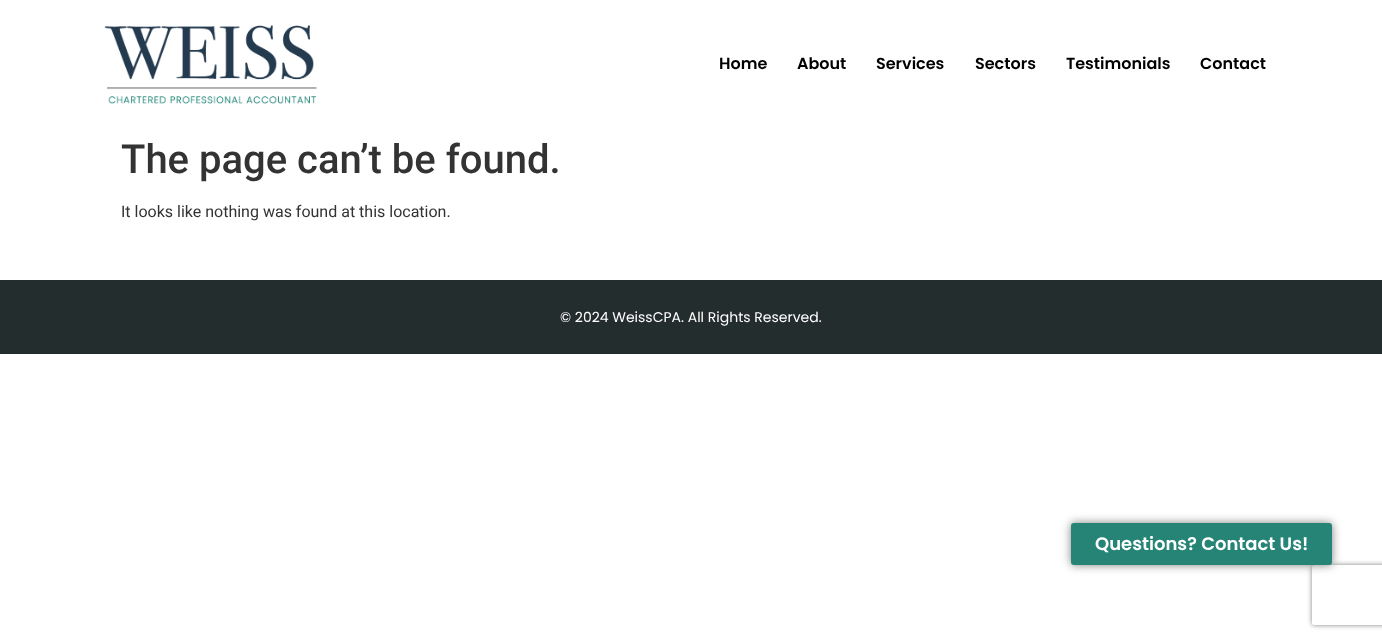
<!DOCTYPE html>
<meta charset="utf-8">
<style>body { margin: 0 } canvas { display: block }</style>
<canvas id="canvas" width="1382" height="639"></canvas>
<script type="module">
  const canvas = document.getElementById("canvas");
  const ctx = canvas.getContext("2d");
  ctx.miterLimit = 4;
  ctx.fontKerning = "normal";
  async function loadImage(src) {
    const img = new Image();
    img.src = src;
    await img.decode();
    return img;
  }

  ctx.fillStyle = "#ffffff";
  ctx.fillRect(0, 0, 1382, 639);
  ctx.drawImage(await loadImage("img1.png"), 104, 25, 213, 79);
  ctx.font = "600 16px Poppins";
  ctx.fillStyle = "#000000";
  ctx.fillText("Home", 719, 69);
  ctx.fillText("About", 797, 69);
  ctx.fillText("Services", 876, 69);
  ctx.fillText("Sectors", 975, 69);
  ctx.fillText("Testimonials", 1066, 69);
  ctx.fillText("Contact", 1200, 69);
  ctx.font = "500 40px Roboto";
  ctx.fillStyle = "#333333";
  ctx.fillText("The page can’t be found.", 121, 173);
  ctx.font = "16px Roboto";
  ctx.fillText("It looks like nothing was found at this location.", 121, 217);
  ctx.fillStyle = "#242d2e";
  ctx.fillRect(0, 280, 1382, 74);
  ctx.font = "14px Poppins";
  ctx.fillStyle = "#ffffff";
  ctx.fillText("© 2024 WeissCPA. All Rights Reserved.", 560, 322);
  ctx.fillStyle = "rgba(0, 0, 0, 0.5)";
  ctx.filter = "blur(5px)";
  ctx.beginPath();
  ctx.roundRect(1071, 523, 261, 42, 3);
  ctx.fill();
  ctx.filter = "none";
  ctx.save();
  ctx.beginPath();
  ctx.moveTo(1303, 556);
  ctx.lineTo(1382, 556);
  ctx.lineTo(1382, 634);
  ctx.lineTo(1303, 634);
  ctx.closePath();
  ctx.moveTo(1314, 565);
  ctx.lineTo(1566, 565);
  ctx.bezierCurveTo(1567, 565, 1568, 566, 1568, 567);
  ctx.lineTo(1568, 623);
  ctx.bezierCurveTo(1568, 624, 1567, 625, 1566, 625);
  ctx.lineTo(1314, 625);
  ctx.bezierCurveTo(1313, 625, 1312, 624, 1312, 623);
  ctx.lineTo(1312, 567);
  ctx.bezierCurveTo(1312, 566, 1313, 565, 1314, 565);
  ctx.closePath();
  ctx.clip("evenodd");
  ctx.fillStyle = "#808080";
  ctx.filter = "blur(2.5px)";
  ctx.beginPath();
  ctx.roundRect(1312, 565, 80, 60, 2);
  ctx.fill();
  ctx.filter = "none";
  ctx.restore();
  ctx.fillStyle = "#258476";
  ctx.beginPath();
  ctx.roundRect(1071, 523, 261, 42, 3);
  ctx.fill();
  ctx.font = "600 18px Poppins";
  ctx.fillStyle = "#ffffff";
  ctx.fillText("Questions? Contact Us!", 1095, 550);
</script>
